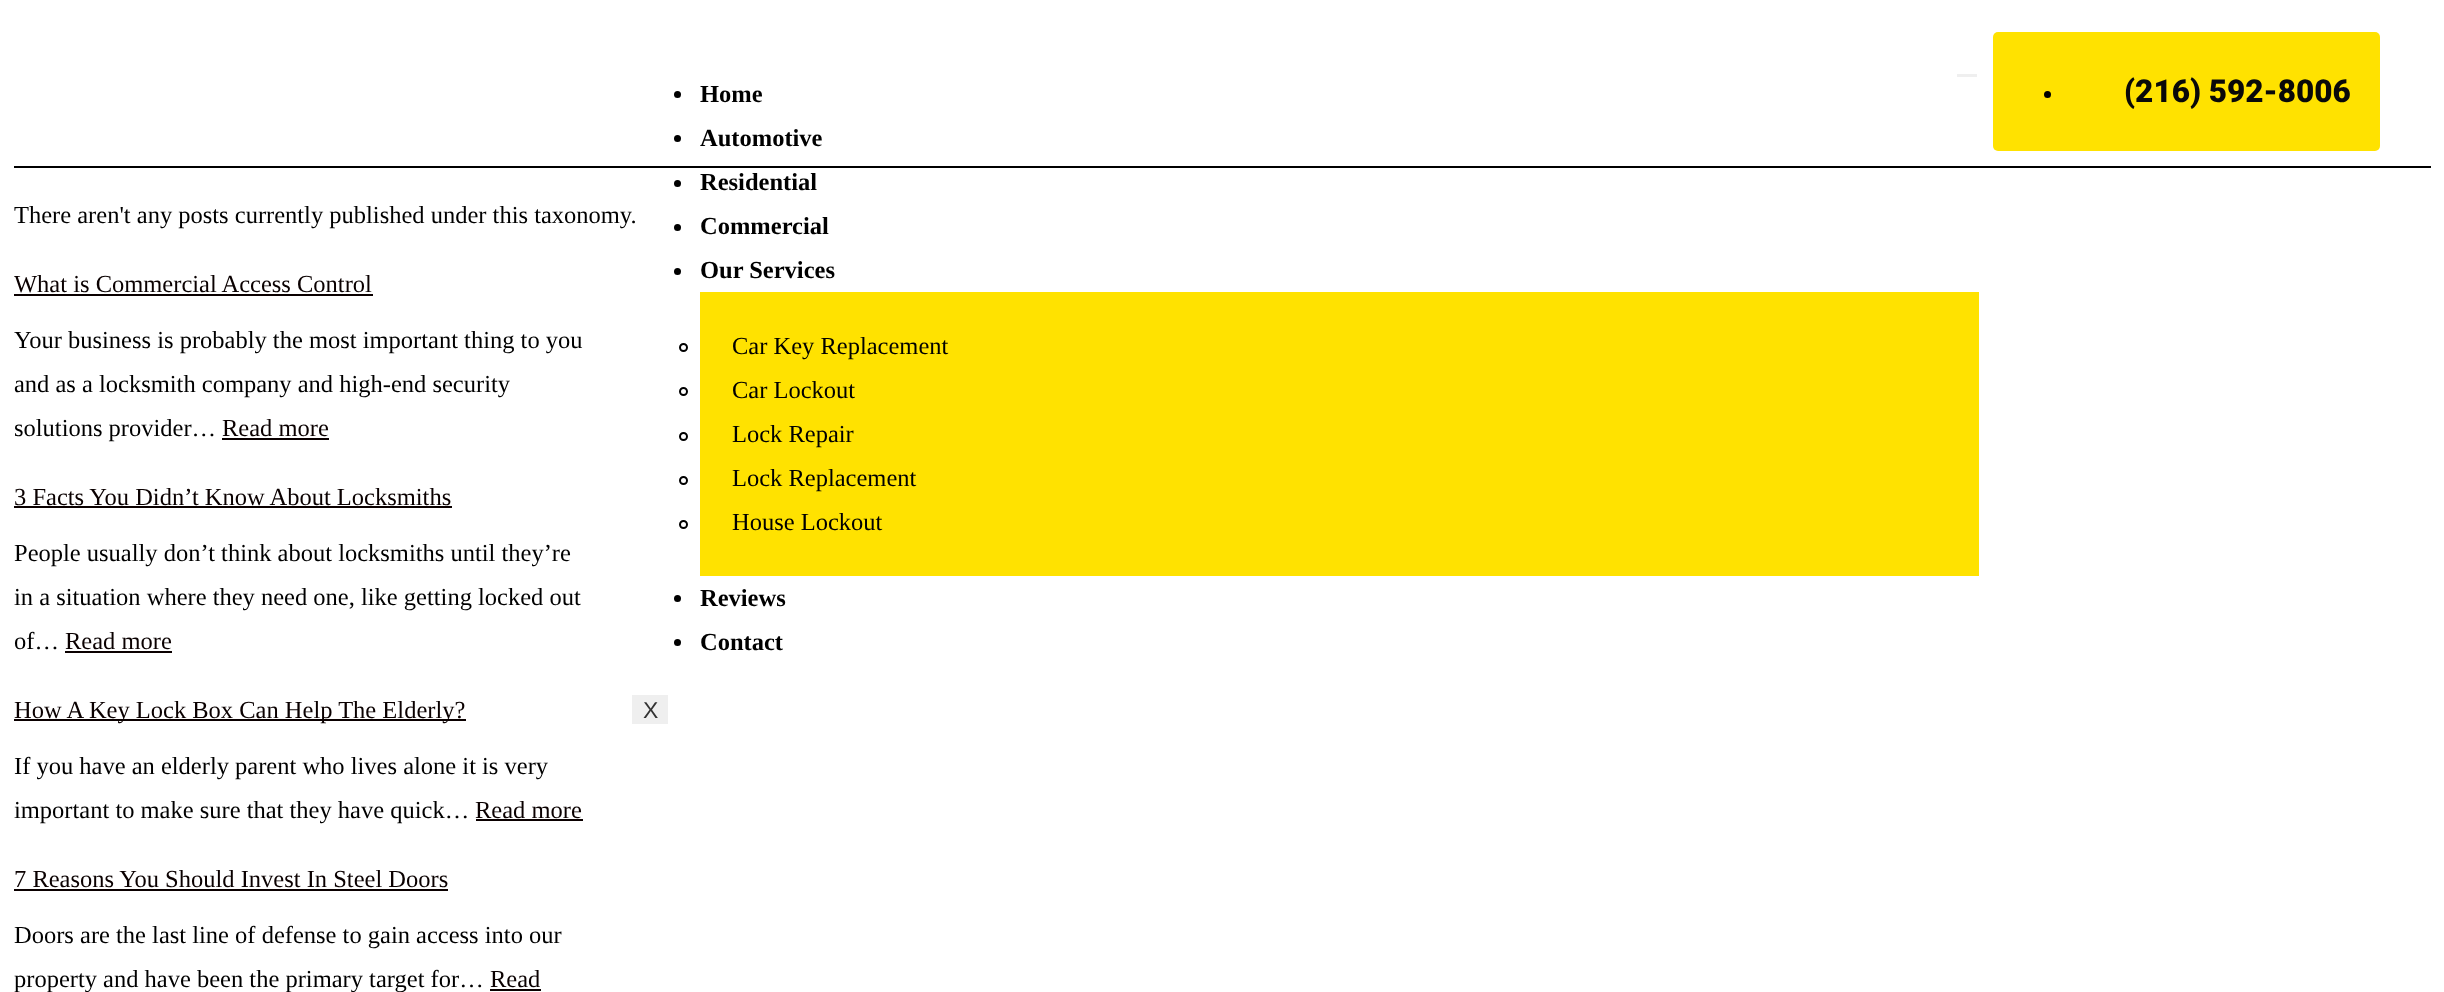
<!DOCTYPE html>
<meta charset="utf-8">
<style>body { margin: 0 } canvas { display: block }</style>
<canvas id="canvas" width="2444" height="992"></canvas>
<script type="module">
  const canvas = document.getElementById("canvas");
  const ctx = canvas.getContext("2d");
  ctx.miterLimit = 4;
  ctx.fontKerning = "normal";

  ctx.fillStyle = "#ffffff";
  ctx.fillRect(0, 0, 2444, 992);
  ctx.font = "24.5px Liberation Serif";
  ctx.fillStyle = "#000000";
  ctx.fillText("There aren't any posts currently published under this taxonomy.", 14, 223);
  ctx.fillStyle = "#0a0000";
  ctx.fillText("What is Commercial Access Control", 14, 292);
  ctx.fillRect(14, 294, 359, 2);
  ctx.fillStyle = "#000000";
  ctx.fillText("Your business is probably the most important thing to you", 14, 348);
  ctx.fillText("and as a locksmith company and high-end security", 14, 392);
  ctx.fillText("solutions provider…", 14, 436);
  ctx.fillStyle = "#0a0000";
  ctx.fillText("Read more", 222, 436);
  ctx.fillRect(222, 438, 107, 2);
  ctx.fillText("3 Facts You Didn’t Know About Locksmiths", 14, 505);
  ctx.fillRect(14, 506, 438, 2);
  ctx.fillStyle = "#000000";
  ctx.fillText("People usually don’t think about locksmiths until they’re", 14, 561);
  ctx.fillText("in a situation where they need one, like getting locked out", 14, 605);
  ctx.fillText("of…", 14, 649);
  ctx.fillStyle = "#0a0000";
  ctx.fillText("Read more", 65, 649);
  ctx.fillRect(65, 651, 107, 2);
  ctx.fillRect(14, 719, 452, 2);
  ctx.fillText("How A Key Lock Box Can Help The Elderly?", 14, 718);
  ctx.fillStyle = "#000000";
  ctx.fillText("If you have an elderly parent who lives alone it is very", 14, 774);
  ctx.fillText("important to make sure that they have quick…", 14, 818);
  ctx.fillStyle = "#0a0000";
  ctx.fillText("Read more", 475, 818);
  ctx.fillRect(476, 819, 107, 2);
  ctx.fillText("7 Reasons You Should Invest In Steel Doors", 14, 887);
  ctx.fillRect(14, 889, 434, 2);
  ctx.fillStyle = "#000000";
  ctx.fillText("Doors are the last line of defense to gain access into our", 14, 943);
  ctx.fillText("property and have been the primary target for…", 14, 987);
  ctx.fillStyle = "#0a0000";
  ctx.fillText("Read", 490, 987);
  ctx.fillRect(490, 989, 51, 2);
  ctx.fillStyle = "#000000";
  ctx.fillRect(14, 166, 2417, 2);
  ctx.fillStyle = "#efefef";
  ctx.beginPath();
  ctx.rect(1956, 73, 22, 5);
  ctx.fill();
  ctx.strokeStyle = "#ffffff";
  ctx.lineWidth = 2;
  ctx.stroke();
  ctx.fillStyle = "#000000";
  ctx.beginPath();
  ctx.arc(677.5, 94.5, 3.5, 0, Math.PI * 2);
  ctx.fill();
  ctx.font = "bold 24.5px Liberation Serif";
  ctx.fillText("Home", 700, 102);
  ctx.beginPath();
  ctx.arc(677.5, 138.5, 3.5, 0, Math.PI * 2);
  ctx.fill();
  ctx.fillText("Automotive", 700, 146);
  ctx.beginPath();
  ctx.arc(677.5, 183.5, 3.5, 0, Math.PI * 2);
  ctx.fill();
  ctx.fillText("Residential", 700, 190);
  ctx.beginPath();
  ctx.arc(677.5, 227.5, 3.5, 0, Math.PI * 2);
  ctx.fill();
  ctx.fillText("Commercial", 700, 234);
  ctx.beginPath();
  ctx.arc(677.5, 271.5, 3.5, 0, Math.PI * 2);
  ctx.fill();
  ctx.fillText("Our Services", 700, 278);
  ctx.fillStyle = "#ffe200";
  ctx.fillRect(700, 292, 1279, 284);
  ctx.beginPath();
  ctx.arc(683.5, 347.5, 3.5, 0, Math.PI * 2);
  ctx.strokeStyle = "#000000";
  ctx.stroke();
  ctx.font = "24.5px Liberation Serif";
  ctx.fillStyle = "#000000";
  ctx.fillText("Car Key Replacement", 732, 354);
  ctx.beginPath();
  ctx.arc(683.5, 391.5, 3.5, 0, Math.PI * 2);
  ctx.stroke();
  ctx.fillText("Car Lockout", 732, 398);
  ctx.beginPath();
  ctx.arc(683.5, 436.5, 3.5, 0, Math.PI * 2);
  ctx.stroke();
  ctx.fillText("Lock Repair", 732, 442);
  ctx.beginPath();
  ctx.arc(683.5, 480.5, 3.5, 0, Math.PI * 2);
  ctx.stroke();
  ctx.fillText("Lock Replacement", 732, 486);
  ctx.beginPath();
  ctx.arc(683.5, 524.5, 3.5, 0, Math.PI * 2);
  ctx.stroke();
  ctx.fillText("House Lockout", 732, 530);
  ctx.beginPath();
  ctx.arc(677.5, 598.5, 3.5, 0, Math.PI * 2);
  ctx.fill();
  ctx.font = "bold 24.5px Liberation Serif";
  ctx.fillText("Reviews", 700, 606);
  ctx.beginPath();
  ctx.arc(677.5, 642.5, 3.5, 0, Math.PI * 2);
  ctx.fill();
  ctx.fillText("Contact", 700, 650);
  ctx.fillStyle = "#efefef";
  ctx.fillRect(632, 695, 36, 29);
  ctx.font = "23px Liberation Sans";
  ctx.fillStyle = "#333333";
  ctx.fillText("X", 643, 718);
  ctx.fillStyle = "#ffe200";
  ctx.beginPath();
  ctx.roundRect(1993, 32, 387, 119, 5);
  ctx.fill();
  ctx.fillStyle = "#000000";
  ctx.beginPath();
  ctx.arc(2047.5, 94.5, 3.5, 0, Math.PI * 2);
  ctx.fill();
  ctx.font = "900 31.5px Roboto";
  ctx.fillStyle = "#090909";
  ctx.fillText("(216) 592-8006", 2124, 102);
</script>
